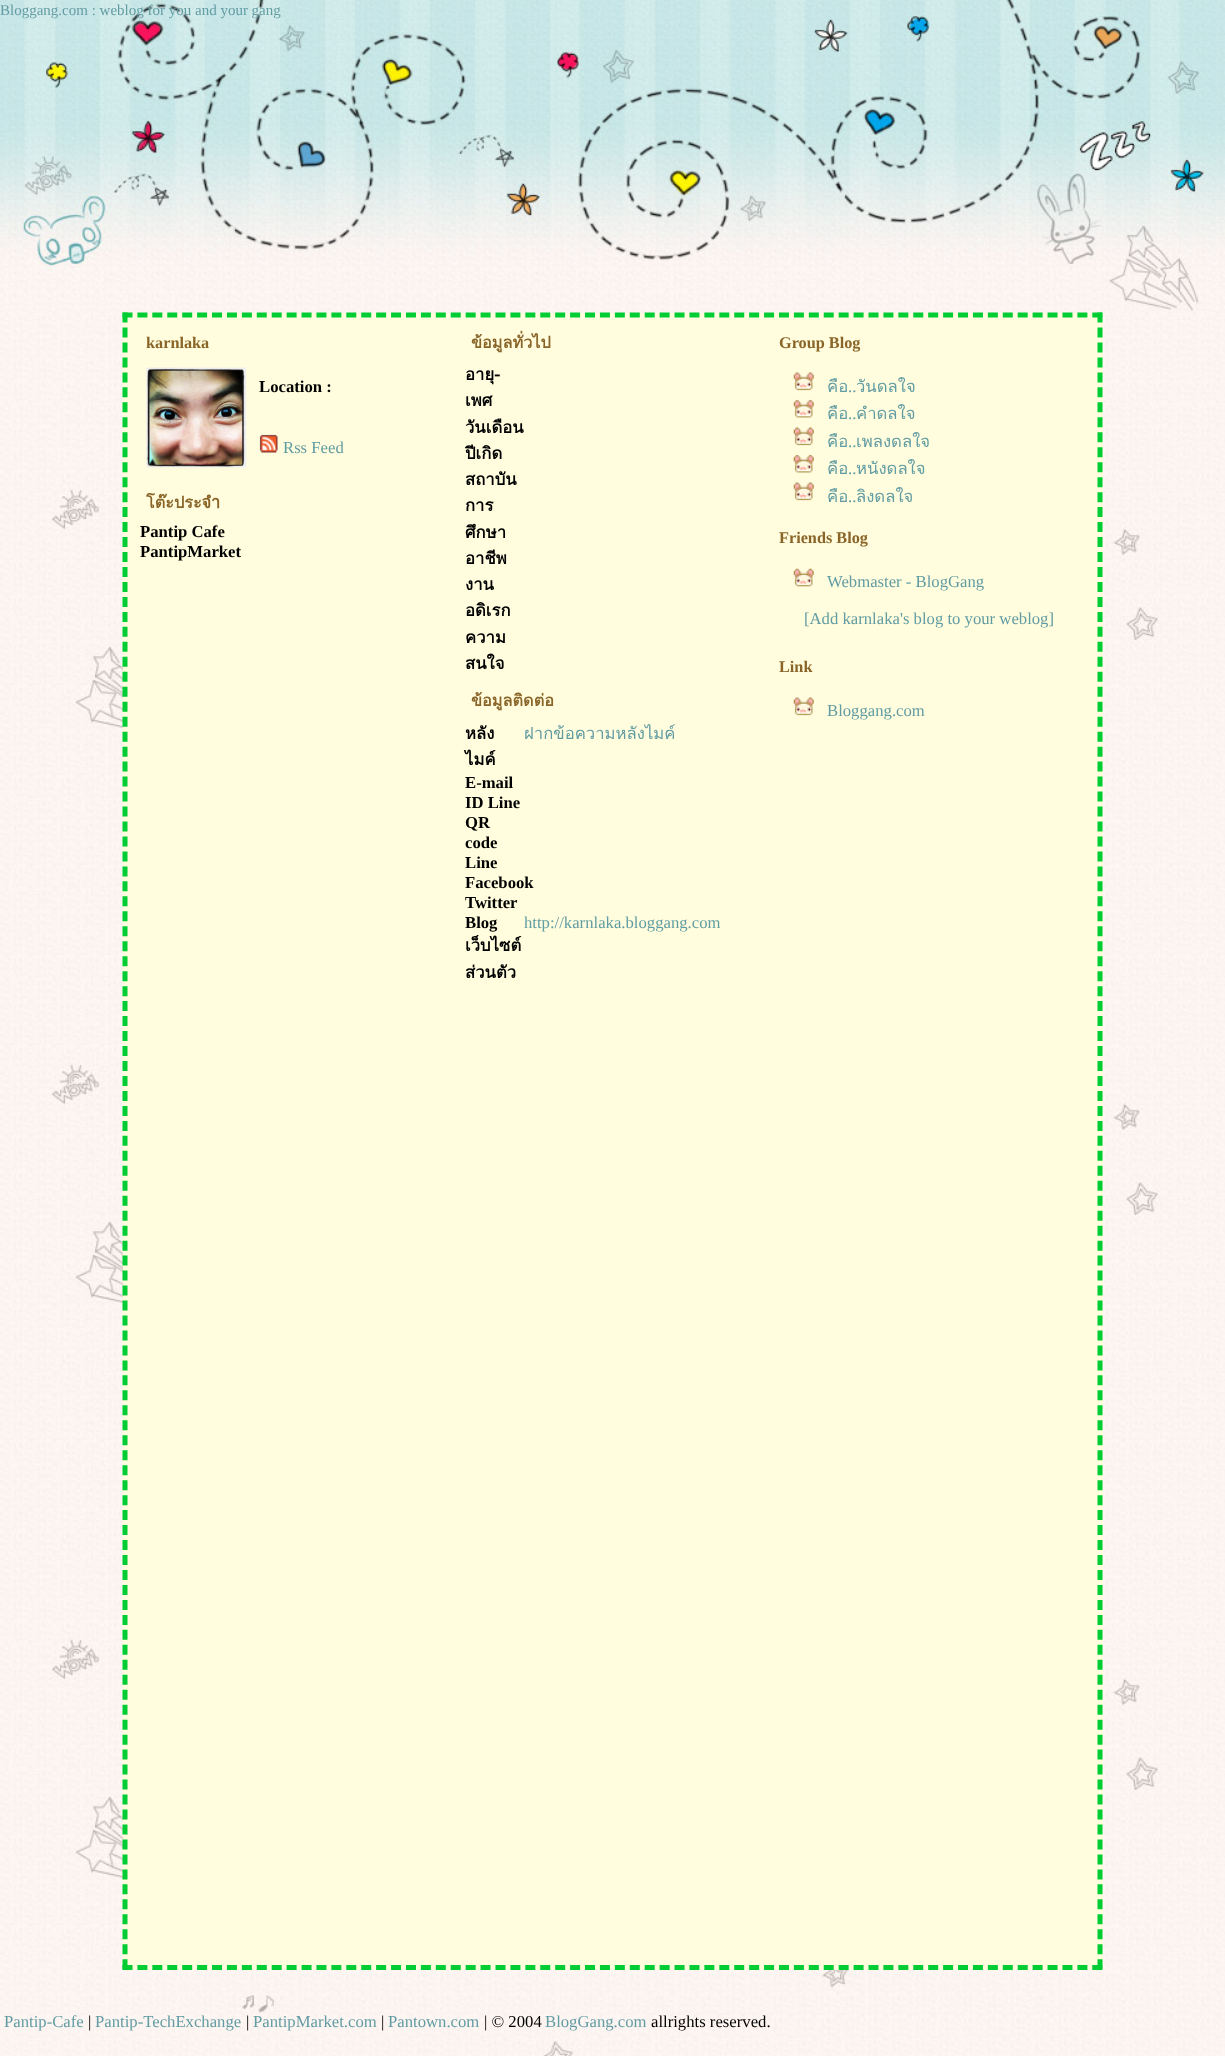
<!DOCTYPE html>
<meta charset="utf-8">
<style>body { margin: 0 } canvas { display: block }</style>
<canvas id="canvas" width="1225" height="2056"></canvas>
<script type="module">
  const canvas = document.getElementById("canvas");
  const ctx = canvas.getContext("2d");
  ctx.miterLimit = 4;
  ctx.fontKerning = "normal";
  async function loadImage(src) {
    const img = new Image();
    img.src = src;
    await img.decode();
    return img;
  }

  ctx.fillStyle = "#ffffff";
  ctx.fillRect(0, 0, 1225, 2056);
  ctx.drawImage(await loadImage("img1.png"), 0, 312, 1225, 1744);
  ctx.drawImage(await loadImage("img2.png"), 0, 0, 1225, 312);
  ctx.font = "15px Liberation Serif";
  ctx.fillStyle = "#629ca3";
  ctx.fillText("Bloggang.com : weblog for you and your gang", 0, 15);
  ctx.fillStyle = "#fffddd";
  ctx.fillRect(123, 313, 980, 1657);
  ctx.beginPath();
  ctx.moveTo(122.5, 315);
  ctx.lineTo(1102.5, 315);
  ctx.strokeStyle = "#00cc33";
  ctx.lineWidth = 5;
  ctx.setLineDash([10, 4.92]);
  ctx.stroke();
  ctx.beginPath();
  ctx.moveTo(1100, 312.5);
  ctx.lineTo(1100, 1970);
  ctx.setLineDash([10, 4.97]);
  ctx.stroke();
  ctx.beginPath();
  ctx.moveTo(122.5, 1967.5);
  ctx.lineTo(1102.5, 1967.5);
  ctx.setLineDash([10, 4.92]);
  ctx.stroke();
  ctx.beginPath();
  ctx.moveTo(125, 312.5);
  ctx.lineTo(125, 1970);
  ctx.setLineDash([10, 4.97]);
  ctx.stroke();
  ctx.font = "bold 16.25px Liberation Serif";
  ctx.fillStyle = "#8a6529";
  ctx.fillText("karnlaka", 146, 348);
  ctx.drawImage(await loadImage("img3.png"), 146, 367, 101, 101);
  ctx.font = "bold 16.7px Liberation Serif";
  ctx.fillStyle = "#000000";
  ctx.fillText("Location :", 259, 392);
  ctx.drawImage(await loadImage("img4.png"), 259, 434, 19, 19);
  ctx.font = "16.7px Liberation Serif";
  ctx.fillStyle = "#629ca3";
  ctx.fillText("Rss Feed", 283, 453);
  ctx.font = "bold 16.25px Loma";
  ctx.fillStyle = "#8a6529";
  ctx.fillText("โต๊ะประจำ", 146, 508);
  ctx.font = "bold 16.7px Liberation Serif";
  ctx.fillStyle = "#000000";
  ctx.fillText("Pantip Cafe", 140, 537);
  ctx.fillText("PantipMarket", 140, 557);
  ctx.font = "bold 16.25px Loma";
  ctx.fillStyle = "#8a6529";
  ctx.fillText("ข้อมูลทั่วไป", 471, 348);
  ctx.font = "bold 16.7px Loma";
  ctx.fillStyle = "#000000";
  ctx.fillText("อายุ-", 465, 380);
  ctx.fillText("เพศ", 465, 406);
  ctx.fillText("วันเดือน", 465, 433);
  ctx.fillText("ปีเกิด", 465, 459);
  ctx.fillText("สถาบัน", 465, 485);
  ctx.fillText("การ", 465, 511);
  ctx.fillText("ศึกษา", 465, 538);
  ctx.fillText("อาชีพ", 465, 564);
  ctx.fillText("งาน", 465, 590);
  ctx.fillText("อดิเรก", 465, 616);
  ctx.fillText("ความ", 465, 643);
  ctx.fillText("สนใจ", 465, 669);
  ctx.font = "bold 16.25px Loma";
  ctx.fillStyle = "#8a6529";
  ctx.fillText("ข้อมูลติดต่อ", 471, 706);
  ctx.font = "bold 16.7px Loma";
  ctx.fillStyle = "#000000";
  ctx.fillText("หลัง", 465, 739);
  ctx.fillText("ไมค์", 465, 765);
  ctx.font = "16.7px Loma";
  ctx.fillStyle = "#629ca3";
  ctx.fillText("ฝากข้อความหลังไมค์", 524, 739);
  ctx.font = "bold 16.7px Liberation Serif";
  ctx.fillStyle = "#000000";
  ctx.fillText("E-mail", 465, 788);
  ctx.fillText("ID Line", 465, 808);
  ctx.fillText("QR", 465, 828);
  ctx.fillText("code", 465, 848);
  ctx.fillText("Line", 465, 868);
  ctx.fillText("Facebook", 465, 888);
  ctx.fillText("Twitter", 465, 908);
  ctx.fillText("Blog", 465, 928);
  ctx.font = "16.7px Liberation Serif";
  ctx.fillStyle = "#629ca3";
  ctx.fillText("http://karnlaka.bloggang.com", 524, 928);
  ctx.font = "bold 16.7px Loma";
  ctx.fillStyle = "#000000";
  ctx.fillText("เว็บไซต์", 465, 951);
  ctx.fillText("ส่วนตัว", 465, 978);
  ctx.font = "bold 16.25px Liberation Serif";
  ctx.fillStyle = "#8a6529";
  ctx.fillText("Group Blog", 779, 348);
  ctx.drawImage(await loadImage("img5.png"), 793, 372, 21, 19);
  ctx.font = "16.7px Loma";
  ctx.fillStyle = "#629ca3";
  ctx.fillText("คือ", 827, 392);
  ctx.font = "16.7px Liberation Serif";
  ctx.fillText("..", 848, 392);
  ctx.font = "16.7px Loma";
  ctx.fillText("วันดลใจ", 856, 392);
  ctx.drawImage(await loadImage("img6.png"), 793, 399, 21, 19);
  ctx.fillText("คือ", 827, 419);
  ctx.font = "16.7px Liberation Serif";
  ctx.fillText("..", 848, 419);
  ctx.font = "16.7px Loma";
  ctx.fillText("คำดลใจ", 856, 419);
  ctx.drawImage(await loadImage("img5.png"), 793, 427, 21, 19);
  ctx.fillText("คือ", 827, 447);
  ctx.font = "16.7px Liberation Serif";
  ctx.fillText("..", 848, 447);
  ctx.font = "16.7px Loma";
  ctx.fillText("เพลงดลใจ", 856, 447);
  ctx.drawImage(await loadImage("img6.png"), 793, 454, 21, 19);
  ctx.fillText("คือ", 827, 474);
  ctx.font = "16.7px Liberation Serif";
  ctx.fillText("..", 848, 474);
  ctx.font = "16.7px Loma";
  ctx.fillText("หนังดลใจ", 856, 474);
  ctx.drawImage(await loadImage("img5.png"), 793, 482, 21, 19);
  ctx.fillText("คือ", 827, 502);
  ctx.font = "16.7px Liberation Serif";
  ctx.fillText("..", 848, 502);
  ctx.font = "16.7px Loma";
  ctx.fillText("ลิงดลใจ", 856, 502);
  ctx.font = "bold 16.25px Liberation Serif";
  ctx.fillStyle = "#8a6529";
  ctx.fillText("Friends Blog", 779, 543);
  ctx.drawImage(await loadImage("img7.png"), 793, 568, 21, 19);
  ctx.font = "16.7px Liberation Serif";
  ctx.fillStyle = "#629ca3";
  ctx.fillText("Webmaster - BlogGang", 827, 587);
  ctx.fillText("[Add karnlaka's blog to your weblog]", 804, 624);
  ctx.font = "bold 16.25px Liberation Serif";
  ctx.fillStyle = "#8a6529";
  ctx.fillText("Link", 779, 672);
  ctx.drawImage(await loadImage("img5.png"), 793, 697, 21, 19);
  ctx.font = "16.7px Liberation Serif";
  ctx.fillStyle = "#629ca3";
  ctx.fillText("Bloggang.com", 827, 716);
  ctx.fillText("Pantip-Cafe", 4, 2027);
  ctx.fillStyle = "#000000";
  ctx.fillText("|", 88, 2027);
  ctx.fillStyle = "#629ca3";
  ctx.fillText("Pantip-TechExchange", 95, 2027);
  ctx.fillStyle = "#000000";
  ctx.fillText("|", 246, 2027);
  ctx.fillStyle = "#629ca3";
  ctx.fillText("PantipMarket.com", 253, 2027);
  ctx.fillStyle = "#000000";
  ctx.fillText("|", 381, 2027);
  ctx.fillStyle = "#629ca3";
  ctx.fillText("Pantown.com", 388, 2027);
  ctx.fillStyle = "#000000";
  ctx.fillText("| © 2004", 484, 2027);
  ctx.fillStyle = "#629ca3";
  ctx.fillText("BlogGang.com", 545, 2027);
  ctx.fillStyle = "#000000";
  ctx.fillText("allrights reserved.", 651, 2027);
</script>
